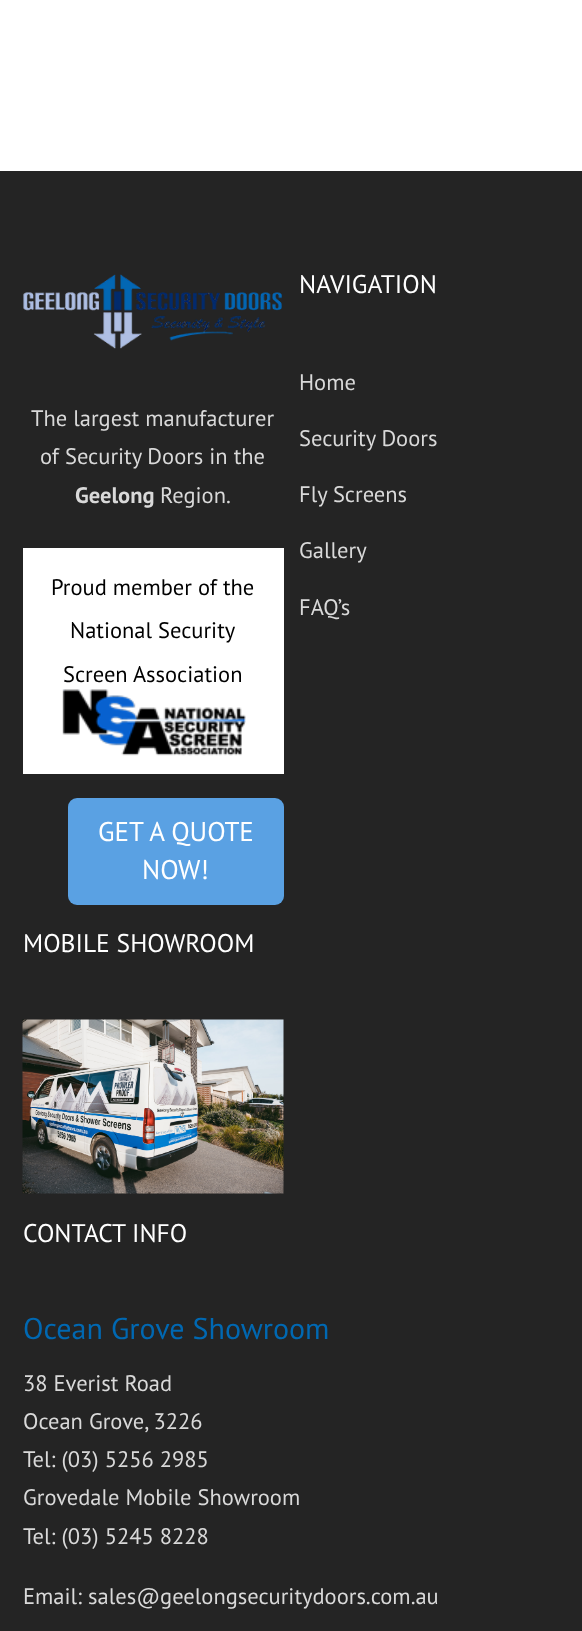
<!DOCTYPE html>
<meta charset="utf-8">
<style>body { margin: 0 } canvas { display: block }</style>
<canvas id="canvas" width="582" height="1631"></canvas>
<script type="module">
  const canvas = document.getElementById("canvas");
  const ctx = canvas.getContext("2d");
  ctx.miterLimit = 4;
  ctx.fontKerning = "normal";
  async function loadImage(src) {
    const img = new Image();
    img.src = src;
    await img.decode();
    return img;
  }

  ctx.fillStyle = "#ffffff";
  ctx.fillRect(0, 0, 582, 1631);
  ctx.fillStyle = "#242424";
  ctx.fillRect(0, 171, 582, 1460);
  ctx.drawImage(await loadImage("img1.png"), 23, 274, 259, 75);
  ctx.font = "22.5px PT Sans";
  ctx.fillStyle = "#d9d9d9";
  ctx.fillText("The largest manufacturer", 31, 426);
  ctx.fillText("of Security Doors in the", 40, 464);
  ctx.font = "bold 22.5px PT Sans";
  ctx.fillText("Geelong", 75, 503);
  ctx.font = "22.5px PT Sans";
  ctx.fillText("Region.", 160, 503);
  ctx.fillStyle = "#ffffff";
  ctx.fillRect(23, 548, 261, 226);
  ctx.fillStyle = "#000000";
  ctx.fillText("Proud member of the", 51, 595);
  ctx.fillText("National Security", 70, 638);
  ctx.fillText("Screen Association", 63, 682);
  ctx.drawImage(await loadImage("img2.png"), 62, 689, 184, 67);
  ctx.fillStyle = "#5aa1e3";
  ctx.beginPath();
  ctx.roundRect(68, 798, 216, 107, 9);
  ctx.fill();
  ctx.font = "27px PT Sans";
  ctx.fillStyle = "#ffffff";
  ctx.fillText("GET A QUOTE", 98, 841);
  ctx.fillText("NOW!", 142, 879);
  ctx.font = "25.5px PT Sans";
  ctx.fillText("NAVIGATION", 299, 293);
  ctx.font = "22.5px PT Sans";
  ctx.fillStyle = "#d9d9d9";
  ctx.fillText("Home", 299, 390);
  ctx.fillText("Security Doors", 299, 446);
  ctx.fillText("Fly Screens", 299, 502);
  ctx.fillText("Gallery", 299, 558);
  ctx.fillText("FAQ’s", 299, 615);
  ctx.font = "25.5px PT Sans";
  ctx.fillStyle = "#ffffff";
  ctx.fillText("MOBILE SHOWROOM", 23, 952);
  ctx.drawImage(await loadImage("img3.png"), 22, 1019, 262, 175);
  ctx.fillText("CONTACT INFO", 23, 1242);
  ctx.font = "30px PT Sans";
  ctx.fillStyle = "#0068b2";
  ctx.fillText("Ocean Grove Showroom", 23, 1339);
  ctx.font = "22.5px PT Sans";
  ctx.fillStyle = "#d9d9d9";
  ctx.fillText("38 Everist Road", 23, 1391);
  ctx.fillText("Ocean Grove, 3226", 23, 1429);
  ctx.fillText("Tel: (03) 5256 2985", 23, 1467);
  ctx.fillText("Grovedale Mobile Showroom", 23, 1505);
  ctx.fillText("Tel: (03) 5245 8228", 23, 1544);
  ctx.fillText("Email: sales@geelongsecuritydoors.com.au", 23, 1604);
</script>
